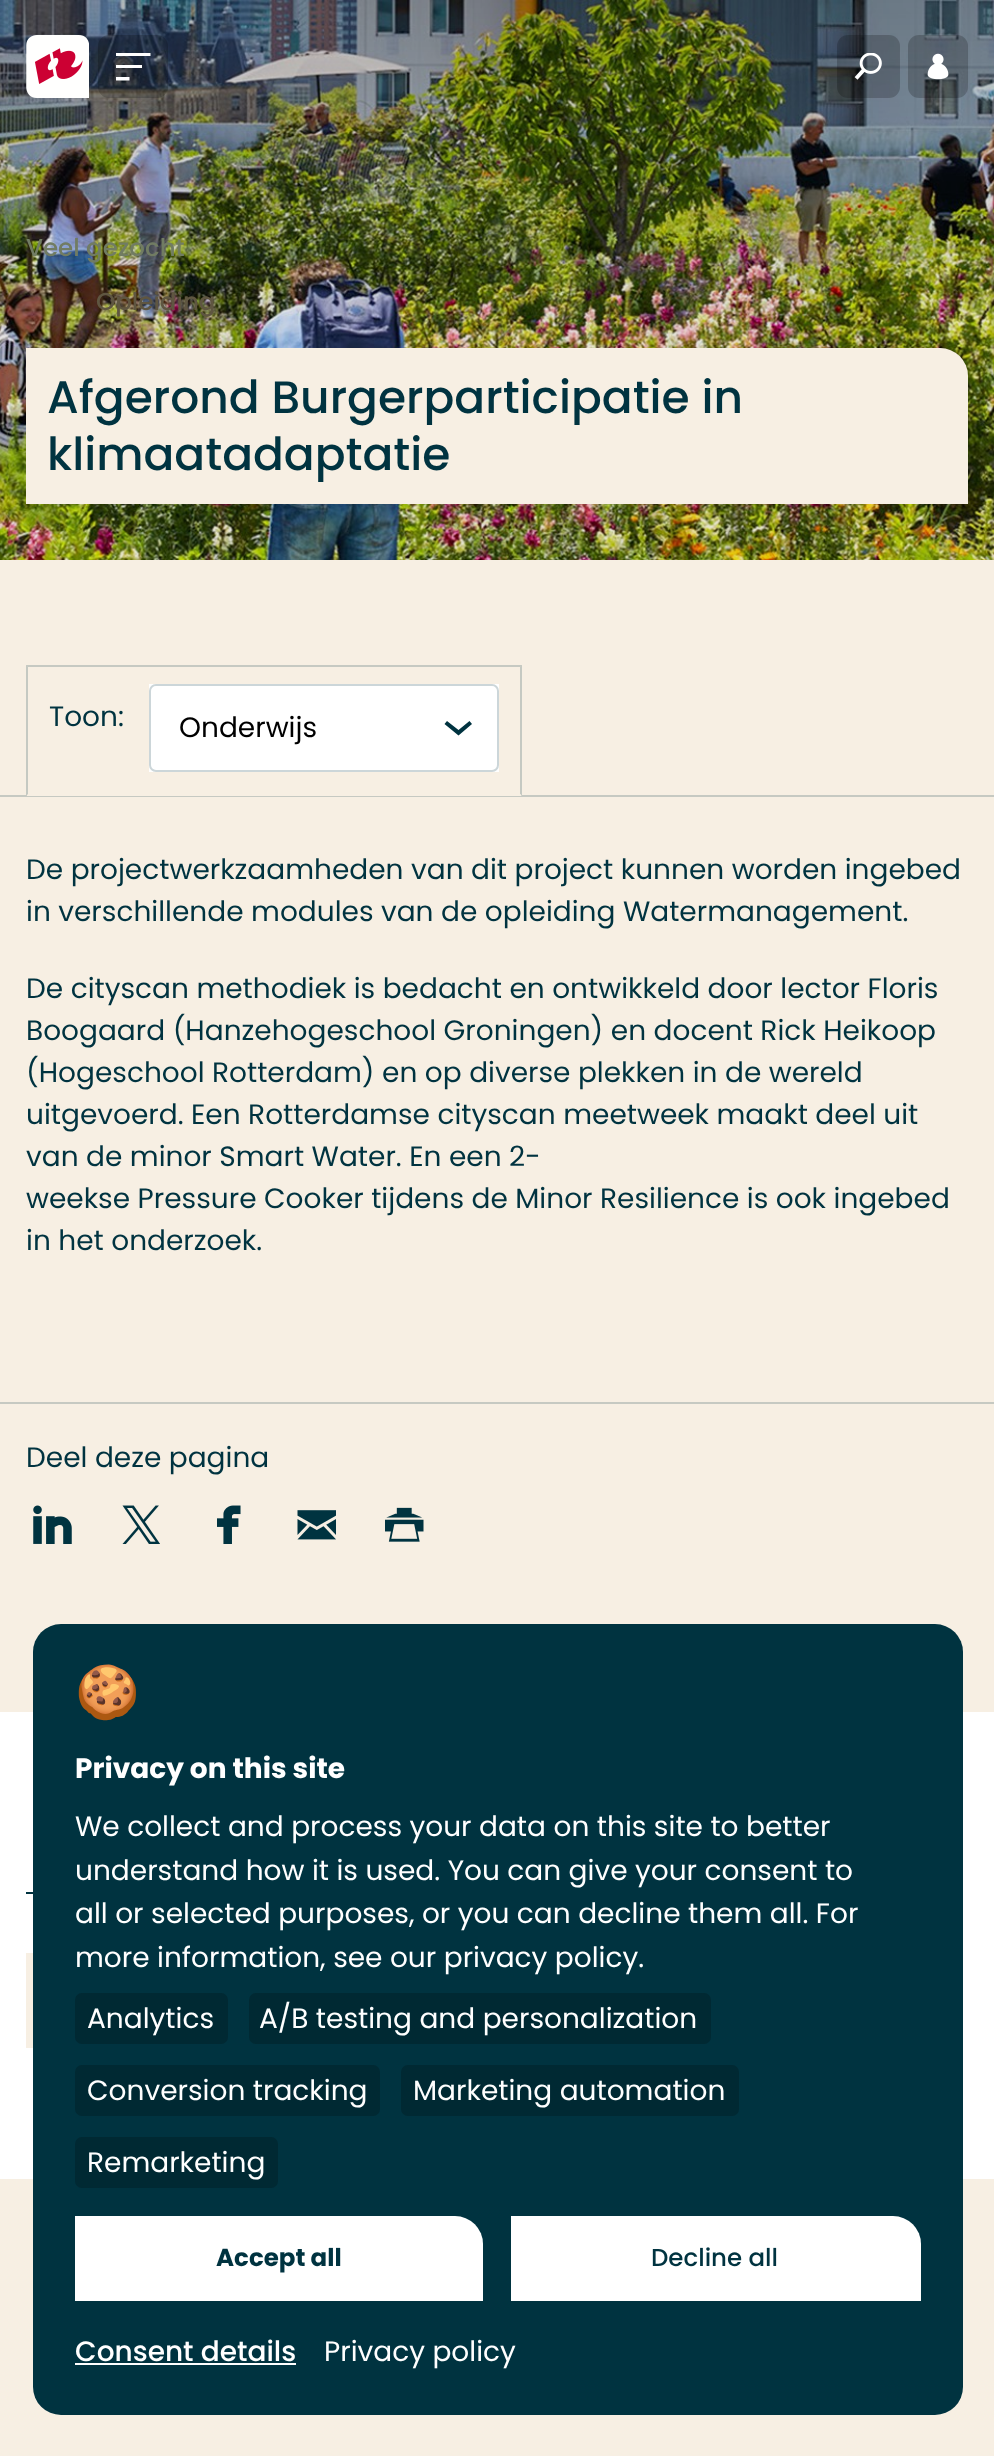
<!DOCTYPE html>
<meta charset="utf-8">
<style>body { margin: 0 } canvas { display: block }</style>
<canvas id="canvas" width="994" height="2456"></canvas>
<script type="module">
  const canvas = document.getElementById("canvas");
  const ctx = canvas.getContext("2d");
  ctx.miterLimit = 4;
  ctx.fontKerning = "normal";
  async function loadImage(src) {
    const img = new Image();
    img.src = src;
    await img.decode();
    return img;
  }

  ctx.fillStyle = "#f7efe3";
  ctx.fillRect(0, 0, 994, 2456);
  ctx.drawImage(await loadImage("img4.png"), 0, 0, 994, 560);
  ctx.font = "500 24.5px Poppins";
  ctx.fillStyle = "#717c63";
  ctx.fillText("Veel gezocht", 26, 256);
  ctx.fillStyle = "#5f5641";
  ctx.fillText("Opleiding", 96, 310);
  ctx.drawImage(await loadImage("img1.png"), 26, 35, 63, 63);
  ctx.fillStyle = "rgba(0, 0, 0, 0.2)";
  ctx.beginPath();
  ctx.roundRect(98, 35, 70, 63, 11);
  ctx.fill();
  ctx.save();
  ctx.beginPath();
  ctx.rect(116, 53, 35, 28);
  ctx.clip();
  ctx.fillStyle = "#ffffff";
  ctx.beginPath();
  ctx.moveTo(115.5, 52.5);
  ctx.lineTo(150.5, 52.5);
  ctx.lineTo(150.5, 56);
  ctx.lineTo(115.5, 56);
  ctx.closePath();
  ctx.moveTo(115.5, 65);
  ctx.lineTo(142, 65);
  ctx.lineTo(142, 68);
  ctx.lineTo(115.5, 68);
  ctx.closePath();
  ctx.moveTo(115.5, 77);
  ctx.lineTo(129.5, 77);
  ctx.lineTo(129.5, 80.5);
  ctx.lineTo(115.5, 80.5);
  ctx.closePath();
  ctx.fill("evenodd");
  ctx.restore();
  ctx.beginPath();
  ctx.roundRect(837, 35, 63, 63, 11);
  ctx.fill();
  ctx.drawImage(await loadImage("img2.png"), 854, 53, 28, 27);
  ctx.beginPath();
  ctx.roundRect(908, 35, 60, 63, 11);
  ctx.fill();
  ctx.drawImage(await loadImage("img3.png"), 927, 53, 22, 27);
  ctx.fillStyle = "#f7efe3";
  ctx.beginPath();
  ctx.roundRect(26, 348, 942, 156, [0, 28, 0, 0]);
  ctx.fill();
  ctx.font = "500 45.5px Poppins";
  ctx.fillStyle = "#003340";
  ctx.fillText("Afgerond Burgerparticipatie in", 47, 413);
  ctx.fillText("klimaatadaptatie", 47, 470);
  ctx.fillStyle = "#c6c9c2";
  ctx.beginPath();
  ctx.moveTo(26, 665);
  ctx.lineTo(522, 665);
  ctx.lineTo(520, 667);
  ctx.lineTo(28, 667);
  ctx.closePath();
  ctx.fill();
  ctx.fillRect(0, 795, 994, 2);
  ctx.fillStyle = "rgba(0, 51, 64, 0.2)";
  ctx.beginPath();
  ctx.moveTo(522, 665);
  ctx.lineTo(522, 796);
  ctx.lineTo(520, 794);
  ctx.lineTo(520, 667);
  ctx.closePath();
  ctx.fill();
  ctx.fillStyle = "#f7efe3";
  ctx.beginPath();
  ctx.moveTo(522, 796);
  ctx.lineTo(26, 796);
  ctx.lineTo(28, 794);
  ctx.lineTo(520, 794);
  ctx.closePath();
  ctx.fill();
  ctx.fillStyle = "rgba(0, 51, 64, 0.2)";
  ctx.beginPath();
  ctx.moveTo(26, 796);
  ctx.lineTo(26, 665);
  ctx.lineTo(28, 667);
  ctx.lineTo(28, 794);
  ctx.closePath();
  ctx.fill();
  ctx.font = "28px Poppins";
  ctx.fillStyle = "#003340";
  ctx.fillText("Toon:", 49, 726);
  ctx.fillStyle = "#ffffff";
  ctx.fillRect(149, 684, 350, 88);
  ctx.beginPath();
  ctx.roundRect(150, 685, 348, 86, 6);
  ctx.strokeStyle = "#ccd6d9";
  ctx.lineWidth = 2;
  ctx.stroke();
  ctx.fillStyle = "#000000";
  ctx.fillText("Onderwijs", 179, 737);
  ctx.fillStyle = "#003340";
  ctx.beginPath();
  ctx.moveTo(444.5, 724);
  ctx.lineTo(447, 721);
  ctx.lineTo(458.5, 730);
  ctx.lineTo(469.5, 721);
  ctx.lineTo(472, 724);
  ctx.lineTo(458.5, 735.5);
  ctx.closePath();
  ctx.fill();
  ctx.fillText("De projectwerkzaamheden van dit project kunnen worden ingebed", 26, 879);
  ctx.fillText("in verschillende modules van de opleiding Watermanagement.", 26, 921);
  ctx.fillText("De cityscan methodiek is bedacht en ontwikkeld door lector Floris", 26, 998);
  ctx.fillText("Boogaard (Hanzehogeschool Groningen) en docent Rick Heikoop", 26, 1040);
  ctx.fillText("(Hogeschool Rotterdam) en op diverse plekken in de wereld", 26, 1082);
  ctx.fillText("uitgevoerd. Een Rotterdamse cityscan meetweek maakt deel uit", 26, 1124);
  ctx.fillText("van de minor Smart Water. En een 2-", 26, 1166);
  ctx.fillText("weekse Pressure Cooker tijdens de Minor Resilience is ook ingebed", 26, 1208);
  ctx.fillText("in het onderzoek.", 26, 1250);
  ctx.fillStyle = "#c6c9c2";
  ctx.fillRect(0, 1402, 994, 2);
  ctx.fillStyle = "#003340";
  ctx.fillText("Deel deze pagina", 26, 1467);
  ctx.drawImage(await loadImage("img5.png"), 33, 1505, 39, 39);
  ctx.drawImage(await loadImage("img6.png"), 122, 1505, 38, 39);
  ctx.drawImage(await loadImage("img7.png"), 217, 1505, 24, 39);
  ctx.drawImage(await loadImage("img8.png"), 297, 1510, 39, 30);
  ctx.drawImage(await loadImage("img9.png"), 385, 1507, 39, 35);
  ctx.fillStyle = "#ffffff";
  ctx.fillRect(0, 1712, 994, 467);
  ctx.fillStyle = "#003340";
  ctx.fillRect(26, 1892, 7, 2);
  ctx.fillStyle = "#f7efe3";
  ctx.fillRect(26, 1953, 7, 95);
  ctx.fillStyle = "#003340";
  ctx.beginPath();
  ctx.roundRect(33, 1624, 930, 791, 28);
  ctx.fill();
  ctx.font = "52px Noto Color Emoji";
  ctx.fillStyle = "#ffffff";
  ctx.fillText("🍪", 75, 1710);
  ctx.font = "bold 28px Poppins";
  ctx.fillText("Privacy on this site", 75, 1778);
  ctx.font = "28px Poppins";
  ctx.fillText("We collect and process your data on this site to better", 75, 1836);
  ctx.fillText("understand how it is used. You can give your consent to", 75, 1880);
  ctx.fillText("all or selected purposes, or you can decline them all. For", 75, 1923);
  ctx.fillText("more information, see our privacy policy.", 75, 1967);
  ctx.fillStyle = "#002933";
  ctx.beginPath();
  ctx.roundRect(75, 1993, 153, 51, 7);
  ctx.fill();
  ctx.fillStyle = "#ffffff";
  ctx.fillText("Analytics", 87, 2028);
  ctx.fillStyle = "#002933";
  ctx.beginPath();
  ctx.roundRect(249, 1993, 462, 51, 7);
  ctx.fill();
  ctx.fillStyle = "#ffffff";
  ctx.fillText("A/B testing and personalization", 259, 2028);
  ctx.fillStyle = "#002933";
  ctx.beginPath();
  ctx.roundRect(75, 2065, 305, 51, 7);
  ctx.fill();
  ctx.fillStyle = "#ffffff";
  ctx.fillText("Conversion tracking", 87, 2100);
  ctx.fillStyle = "#002933";
  ctx.beginPath();
  ctx.roundRect(401, 2065, 338, 51, 7);
  ctx.fill();
  ctx.fillStyle = "#ffffff";
  ctx.fillText("Marketing automation", 413, 2100);
  ctx.fillStyle = "#002933";
  ctx.beginPath();
  ctx.roundRect(75, 2137, 203, 51, 7);
  ctx.fill();
  ctx.fillStyle = "#ffffff";
  ctx.fillText("Remarketing", 87, 2172);
  ctx.beginPath();
  ctx.roundRect(75, 2216, 408, 85, [0, 28, 0, 0]);
  ctx.fill();
  ctx.font = "bold 24.5px Poppins";
  ctx.fillStyle = "#003340";
  ctx.fillText("Accept all", 216, 2266);
  ctx.fillStyle = "#ffffff";
  ctx.beginPath();
  ctx.roundRect(511, 2216, 410, 85, [0, 28, 0, 0]);
  ctx.fill();
  ctx.font = "500 24.5px Poppins";
  ctx.fillStyle = "#003340";
  ctx.fillText("Decline all", 651, 2266);
  ctx.font = "500 28px Poppins";
  ctx.fillStyle = "#ffffff";
  ctx.fillText("Consent details", 75, 2361);
  ctx.fillRect(75, 2363, 221, 2);
  ctx.font = "28px Poppins";
  ctx.fillText("Privacy policy", 324, 2361);
</script>
